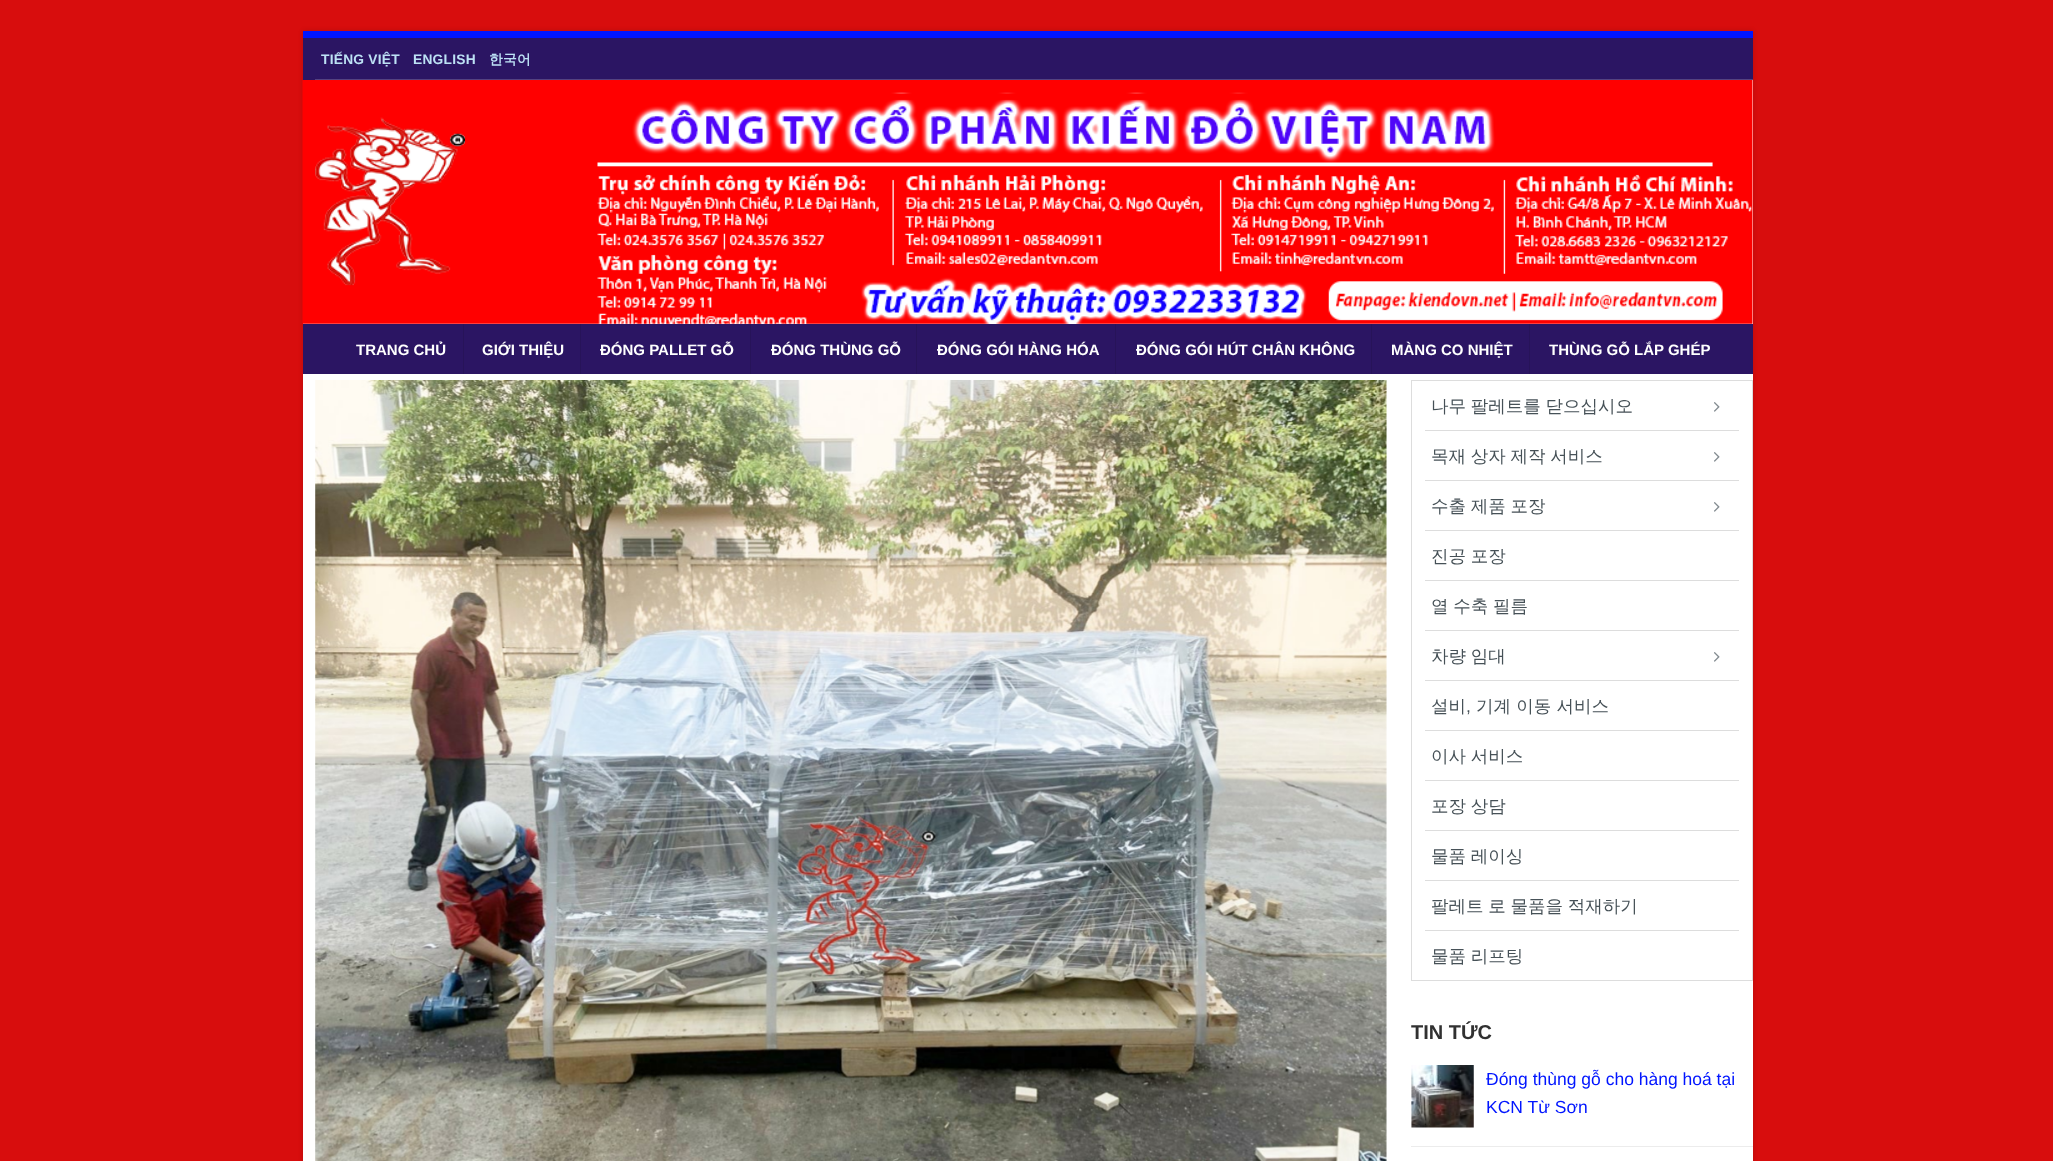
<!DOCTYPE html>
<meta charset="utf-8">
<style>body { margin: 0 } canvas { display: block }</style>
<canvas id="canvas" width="2053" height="1161"></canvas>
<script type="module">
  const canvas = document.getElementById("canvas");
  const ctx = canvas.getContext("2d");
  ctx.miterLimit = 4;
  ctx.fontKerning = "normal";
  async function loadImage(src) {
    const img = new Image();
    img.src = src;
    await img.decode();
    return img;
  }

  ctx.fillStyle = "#d80d0d";
  ctx.fillRect(0, 0, 2053, 1161);
  ctx.fillStyle = "rgba(0, 0, 0, 0.15)";
  ctx.filter = "blur(2.5px)";
  ctx.beginPath();
  ctx.rect(303, 31, 1450, 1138);
  ctx.fill();
  ctx.filter = "none";
  ctx.fillStyle = "#ffffff";
  ctx.fillRect(303, 80, 1450, 1081);
  ctx.fillStyle = "#0015ff";
  ctx.fillRect(303, 31, 1450, 7);
  ctx.fillStyle = "#2b1563";
  ctx.fillRect(303, 38, 1450, 42);
  ctx.letterSpacing = "0.25px";
  ctx.font = "bold 13.75px Liberation Sans";
  ctx.fillStyle = "#bde1f5";
  ctx.fillText("TIẾNG VIỆT", 321, 64);
  ctx.fillText("ENGLISH", 413, 64);
  ctx.font = "bold 13.75px WenQuanYi Zen Hei";
  ctx.fillText("한국어", 489, 64);
  ctx.fillStyle = "#544281";
  ctx.fillRect(315, 79, 1438, 1);
  ctx.drawImage(await loadImage("img1.png"), 302, 80, 1451, 244);
  ctx.drawImage(await loadImage("img2.png"), 315, 117, 150, 169);
  ctx.fillStyle = "#2b1563";
  ctx.fillRect(303, 324, 1450, 50);
  ctx.fillStyle = "#271359";
  ctx.fillRect(463, 324, 1, 50);
  ctx.letterSpacing = "0px";
  ctx.font = "bold 15px Liberation Sans";
  ctx.fillStyle = "#ffffff";
  ctx.fillText("TRANG CHỦ", 356, 355);
  ctx.fillStyle = "#271359";
  ctx.fillRect(580, 324, 1, 50);
  ctx.fillStyle = "#ffffff";
  ctx.fillText("GIỚI THIỆU", 482, 355);
  ctx.fillStyle = "#271359";
  ctx.fillRect(750, 324, 1, 50);
  ctx.fillStyle = "#ffffff";
  ctx.fillText("ĐÓNG PALLET GỖ", 600, 355);
  ctx.fillStyle = "#271359";
  ctx.fillRect(916, 324, 1, 50);
  ctx.fillStyle = "#ffffff";
  ctx.fillText("ĐÓNG THÙNG GỖ", 771, 355);
  ctx.fillStyle = "#271359";
  ctx.fillRect(1115, 324, 1, 50);
  ctx.fillStyle = "#ffffff";
  ctx.fillText("ĐÓNG GÓI HÀNG HÓA", 937, 355);
  ctx.fillStyle = "#271359";
  ctx.fillRect(1371, 324, 1, 50);
  ctx.fillStyle = "#ffffff";
  ctx.fillText("ĐÓNG GÓI HÚT CHÂN KHÔNG", 1136, 355);
  ctx.fillStyle = "#271359";
  ctx.fillRect(1529, 324, 1, 50);
  ctx.fillStyle = "#ffffff";
  ctx.fillText("MÀNG CO NHIỆT", 1391, 355);
  ctx.fillText("THÙNG GỖ LẮP GHÉP", 1549, 355);
  ctx.drawImage(await loadImage("img3.png"), 315, 380, 1072, 781);
  ctx.strokeStyle = "#dddddd";
  ctx.strokeRect(1411.5, 380.5, 341, 600);
  ctx.wordSpacing = "-0.5px";
  ctx.font = "500 17.5px WenQuanYi Zen Hei";
  ctx.fillStyle = "#465157";
  ctx.fillText("나무 팔레트를 닫으십시오", 1431, 412);
  ctx.drawImage(await loadImage("img4.png"), 1714, 402, 6, 10);
  ctx.fillStyle = "#dddddd";
  ctx.fillRect(1425, 430, 314, 1);
  ctx.fillStyle = "#465157";
  ctx.fillText("목재 상자 제작 서비스", 1431, 462);
  ctx.drawImage(await loadImage("img4.png"), 1714, 452, 6, 10);
  ctx.fillStyle = "#dddddd";
  ctx.fillRect(1425, 480, 314, 1);
  ctx.fillStyle = "#465157";
  ctx.fillText("수출 제품 포장", 1431, 512);
  ctx.drawImage(await loadImage("img4.png"), 1714, 502, 6, 10);
  ctx.fillStyle = "#dddddd";
  ctx.fillRect(1425, 530, 314, 1);
  ctx.fillStyle = "#465157";
  ctx.fillText("진공 포장", 1431, 562);
  ctx.fillStyle = "#dddddd";
  ctx.fillRect(1425, 580, 314, 1);
  ctx.fillStyle = "#465157";
  ctx.fillText("열 수축 필름", 1431, 612);
  ctx.fillStyle = "#dddddd";
  ctx.fillRect(1425, 630, 314, 1);
  ctx.fillStyle = "#465157";
  ctx.fillText("차량 임대", 1431, 662);
  ctx.drawImage(await loadImage("img4.png"), 1714, 652, 6, 10);
  ctx.fillStyle = "#dddddd";
  ctx.fillRect(1425, 680, 314, 1);
  ctx.wordSpacing = "0px";
  ctx.fillStyle = "#465157";
  ctx.fillText("설비", 1431, 712);
  ctx.font = "17.5px Liberation Sans";
  ctx.fillText(",", 1466, 712);
  ctx.font = "500 17.5px WenQuanYi Zen Hei";
  ctx.fillText("기계 이동 서비스", 1476, 712);
  ctx.fillStyle = "#dddddd";
  ctx.fillRect(1425, 730, 314, 1);
  ctx.wordSpacing = "-0.5px";
  ctx.fillStyle = "#465157";
  ctx.fillText("이사 서비스", 1431, 762);
  ctx.fillStyle = "#dddddd";
  ctx.fillRect(1425, 780, 314, 1);
  ctx.fillStyle = "#465157";
  ctx.fillText("포장 상담", 1431, 812);
  ctx.fillStyle = "#dddddd";
  ctx.fillRect(1425, 830, 314, 1);
  ctx.fillStyle = "#465157";
  ctx.fillText("물품 레이싱", 1431, 862);
  ctx.fillStyle = "#dddddd";
  ctx.fillRect(1425, 880, 314, 1);
  ctx.fillStyle = "#465157";
  ctx.fillText("팔레트 로 물품을 적재하기", 1431, 912);
  ctx.fillStyle = "#dddddd";
  ctx.fillRect(1425, 930, 314, 1);
  ctx.fillStyle = "#465157";
  ctx.fillText("물품 리프팅", 1431, 962);
  ctx.wordSpacing = "0px";
  ctx.font = "bold 20px Liberation Sans";
  ctx.fillStyle = "#313131";
  ctx.fillText("TIN TỨC", 1411, 1039);
  ctx.drawImage(await loadImage("img5.png"), 1411, 1065, 63, 63);
  ctx.font = "17.5px Liberation Sans";
  ctx.fillStyle = "#0015ff";
  ctx.fillText("Đóng thùng gỗ cho hàng hoá tại", 1486, 1085);
  ctx.fillText("KCN Từ Sơn", 1486, 1113);
  ctx.fillStyle = "#ececec";
  ctx.fillRect(1411, 1146, 342, 1);
</script>
